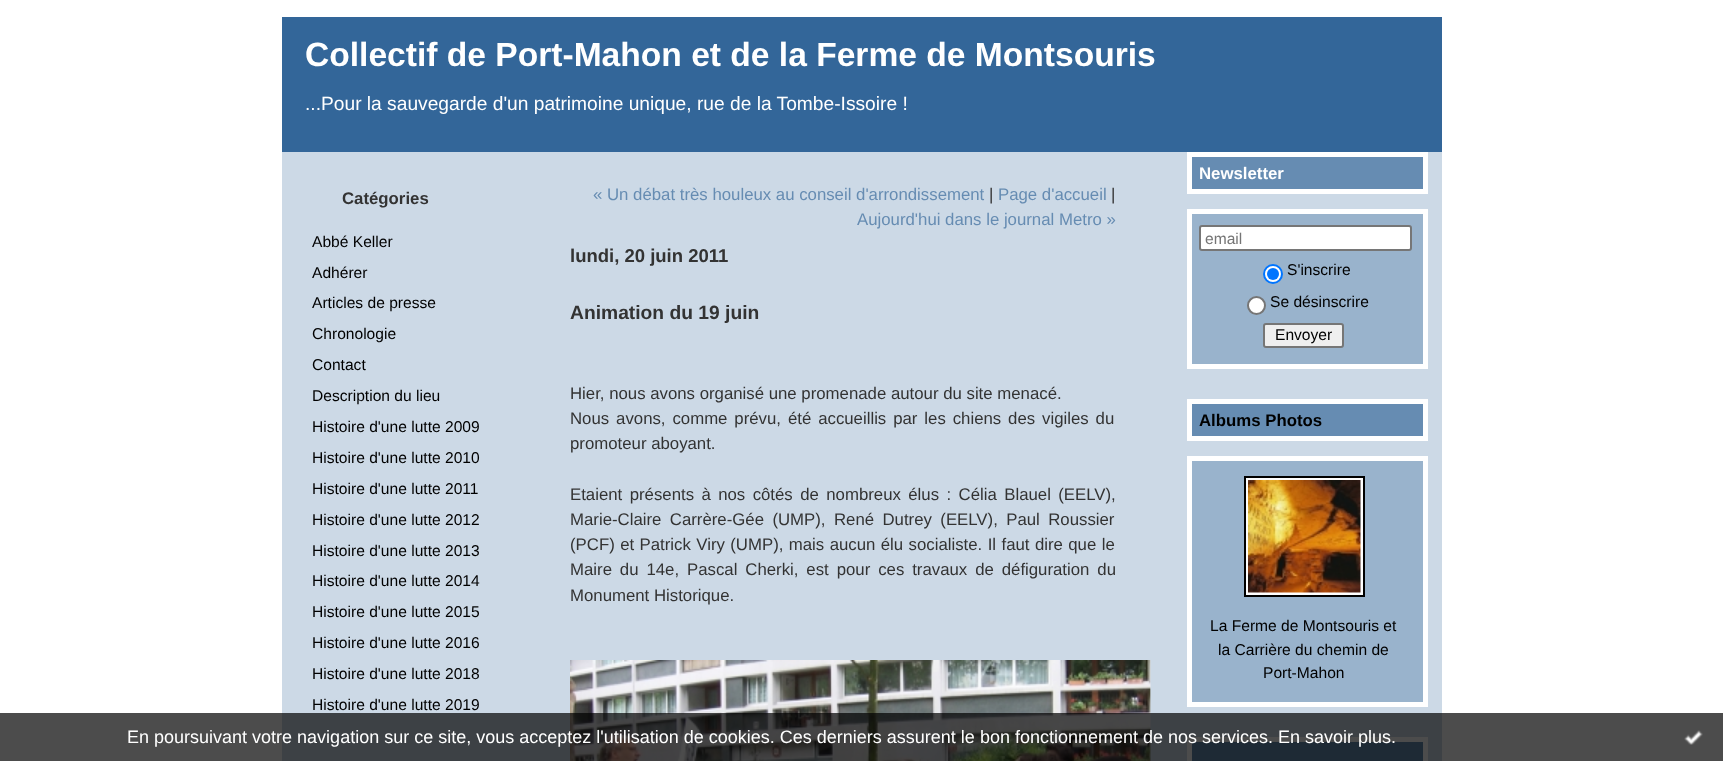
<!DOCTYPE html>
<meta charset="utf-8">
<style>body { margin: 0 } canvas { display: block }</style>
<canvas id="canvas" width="1723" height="761"></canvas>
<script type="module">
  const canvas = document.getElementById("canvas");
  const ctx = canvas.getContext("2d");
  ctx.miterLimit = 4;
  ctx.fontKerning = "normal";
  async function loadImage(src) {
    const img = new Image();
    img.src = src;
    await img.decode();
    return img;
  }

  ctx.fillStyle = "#ffffff";
  ctx.fillRect(0, 0, 1723, 761);
  ctx.fillStyle = "#ccd9e6";
  ctx.fillRect(282, 152, 1160, 609);
  ctx.fillStyle = "#336699";
  ctx.fillRect(282, 17, 1160, 135);
  ctx.font = "bold 33.6px Liberation Sans";
  ctx.fillStyle = "#ffffff";
  ctx.fillText("Collectif de Port-Mahon et de la Ferme de Montsouris", 305, 66);
  ctx.font = "19.2px Liberation Sans";
  ctx.fillText("...Pour la sauvegarde d'un patrimoine unique, rue de la Tombe-Issoire !", 305, 110);
  ctx.font = "bold 16.8px Liberation Sans";
  ctx.fillStyle = "#333333";
  ctx.fillText("Catégories", 342, 204);
  ctx.font = "15.6px Liberation Sans";
  ctx.fillStyle = "#000000";
  ctx.fillText("Abbé Keller", 312, 247);
  ctx.fillText("Adhérer", 312, 278);
  ctx.fillText("Articles de presse", 312, 308);
  ctx.fillText("Chronologie", 312, 339);
  ctx.fillText("Contact", 312, 370);
  ctx.fillText("Description du lieu", 312, 401);
  ctx.fillText("Histoire d'une lutte 2009", 312, 432);
  ctx.fillText("Histoire d'une lutte 2010", 312, 463);
  ctx.fillText("Histoire d'une lutte 2011", 312, 494);
  ctx.fillText("Histoire d'une lutte 2012", 312, 525);
  ctx.fillText("Histoire d'une lutte 2013", 312, 556);
  ctx.fillText("Histoire d'une lutte 2014", 312, 586);
  ctx.fillText("Histoire d'une lutte 2015", 312, 617);
  ctx.fillText("Histoire d'une lutte 2016", 312, 648);
  ctx.fillText("Histoire d'une lutte 2018", 312, 679);
  ctx.fillText("Histoire d'une lutte 2019", 312, 710);
  ctx.font = "16.8px Liberation Sans";
  ctx.fillStyle = "#668cb2";
  ctx.fillText("« Un débat très houleux au conseil d'arrondissement", 593, 200);
  ctx.fillStyle = "#333333";
  ctx.fillText("|", 989, 200);
  ctx.fillStyle = "#668cb2";
  ctx.fillText("Page d'accueil", 998, 200);
  ctx.fillStyle = "#333333";
  ctx.fillText("|", 1111, 200);
  ctx.fillStyle = "#668cb2";
  ctx.fillText("Aujourd'hui dans le journal Metro »", 857, 225);
  ctx.font = "bold 18.5px Liberation Sans";
  ctx.fillStyle = "#333333";
  ctx.fillText("lundi, 20 juin 2011", 570, 262);
  ctx.font = "bold 19.25px Liberation Sans";
  ctx.fillText("Animation du 19 juin", 570, 319);
  ctx.font = "16.8px Liberation Sans";
  ctx.fillText("Hier, nous avons organisé une promenade autour du site menacé.", 570, 399);
  ctx.wordSpacing = "2.25px";
  ctx.fillText("Nous avons, comme prévu, été accueillis par les chiens des vigiles du", 570, 424);
  ctx.wordSpacing = "0px";
  ctx.fillText("promoteur aboyant.", 570, 449);
  ctx.wordSpacing = "2.75px";
  ctx.fillText("Etaient présents à nos côtés de nombreux élus : Célia Blauel (EELV),", 570, 500);
  ctx.wordSpacing = "3.75px";
  ctx.fillText("Marie-Claire Carrère-Gée (UMP), René Dutrey (EELV), Paul Roussier", 570, 525);
  ctx.wordSpacing = "0.75px";
  ctx.fillText("(PCF) et Patrick Viry (UMP), mais aucun élu socialiste. Il faut dire que le", 570, 550);
  ctx.wordSpacing = "3.25px";
  ctx.fillText("Maire du 14e, Pascal Cherki, est pour ces travaux de défiguration du", 570, 575);
  ctx.wordSpacing = "0px";
  ctx.fillText("Monument Historique.", 570, 601);
  ctx.drawImage(await loadImage("img1.png"), 570, 660, 581, 101);
  ctx.fillStyle = "#668cb2";
  ctx.beginPath();
  ctx.rect(1189.5, 154.5, 236, 37);
  ctx.fill();
  ctx.strokeStyle = "#ffffff";
  ctx.lineWidth = 5;
  ctx.stroke();
  ctx.font = "bold 16.8px Liberation Sans";
  ctx.fillStyle = "#ffffff";
  ctx.fillText("Newsletter", 1199, 179);
  ctx.fillStyle = "#99b3cc";
  ctx.beginPath();
  ctx.rect(1189.5, 211.5, 236, 155);
  ctx.fill();
  ctx.stroke();
  ctx.fillStyle = "#ffffff";
  ctx.beginPath();
  ctx.roundRect(1200, 226, 211, 24, 2);
  ctx.fill();
  ctx.strokeStyle = "#767676";
  ctx.lineWidth = 2;
  ctx.stroke();
  ctx.font = "15.6px Liberation Sans";
  ctx.fillStyle = "#757575";
  ctx.fillText("email", 1205, 244);
  ctx.fillStyle = "#ffffff";
  ctx.beginPath();
  ctx.arc(1273, 274, 9, 0, Math.PI * 2);
  ctx.fill();
  ctx.strokeStyle = "#0075ff";
  ctx.stroke();
  ctx.fillStyle = "#0075ff";
  ctx.beginPath();
  ctx.arc(1273, 274, 6, 0, Math.PI * 2);
  ctx.fill();
  ctx.fillStyle = "#000000";
  ctx.fillText("S'inscrire", 1287, 275);
  ctx.fillStyle = "#ffffff";
  ctx.beginPath();
  ctx.arc(1256.5, 305.5, 8.5, 0, Math.PI * 2);
  ctx.fill();
  ctx.strokeStyle = "#767676";
  ctx.stroke();
  ctx.fillStyle = "#000000";
  ctx.fillText("Se désinscrire", 1270, 307);
  ctx.fillStyle = "#efefef";
  ctx.beginPath();
  ctx.roundRect(1264, 324, 79, 23, 2);
  ctx.fill();
  ctx.stroke();
  ctx.fillStyle = "#000000";
  ctx.fillText("Envoyer", 1275, 340);
  ctx.fillStyle = "#668cb2";
  ctx.beginPath();
  ctx.rect(1189.5, 401.5, 236, 37);
  ctx.fill();
  ctx.strokeStyle = "#ffffff";
  ctx.lineWidth = 5;
  ctx.stroke();
  ctx.font = "bold 16.8px Liberation Sans";
  ctx.fillStyle = "#000000";
  ctx.fillText("Albums Photos", 1199, 426);
  ctx.fillStyle = "#99b3cc";
  ctx.beginPath();
  ctx.rect(1189.5, 458.5, 236, 246);
  ctx.fill();
  ctx.stroke();
  ctx.fillStyle = "#ffffff";
  ctx.beginPath();
  ctx.rect(1245, 477, 119, 119);
  ctx.fill();
  ctx.strokeStyle = "#000000";
  ctx.lineWidth = 2;
  ctx.stroke();
  ctx.drawImage(await loadImage("img2.png"), 1248, 480, 113, 113);
  ctx.font = "15.6px Liberation Sans";
  ctx.fillStyle = "#000000";
  ctx.fillText("La Ferme de Montsouris et", 1210, 631);
  ctx.fillText("la Carrière du chemin de", 1218, 655);
  ctx.fillText("Port-Mahon", 1263, 678);
  ctx.fillStyle = "#668cb2";
  ctx.beginPath();
  ctx.rect(1189.5, 739.5, 236, 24);
  ctx.fill();
  ctx.strokeStyle = "#ffffff";
  ctx.lineWidth = 5;
  ctx.stroke();
  ctx.fillStyle = "rgba(0, 0, 0, 0.7)";
  ctx.fillRect(0, 713, 1723, 48);
  ctx.font = "18px Liberation Sans";
  ctx.fillStyle = "#ffffff";
  ctx.fillText("En poursuivant votre navigation sur ce site, vous acceptez l'utilisation de cookies. Ces derniers assurent le bon fonctionnement de nos services. En savoir plus.", 127, 743);
  ctx.drawImage(await loadImage("img3.png"), 1684, 730, 19, 15);
</script>
